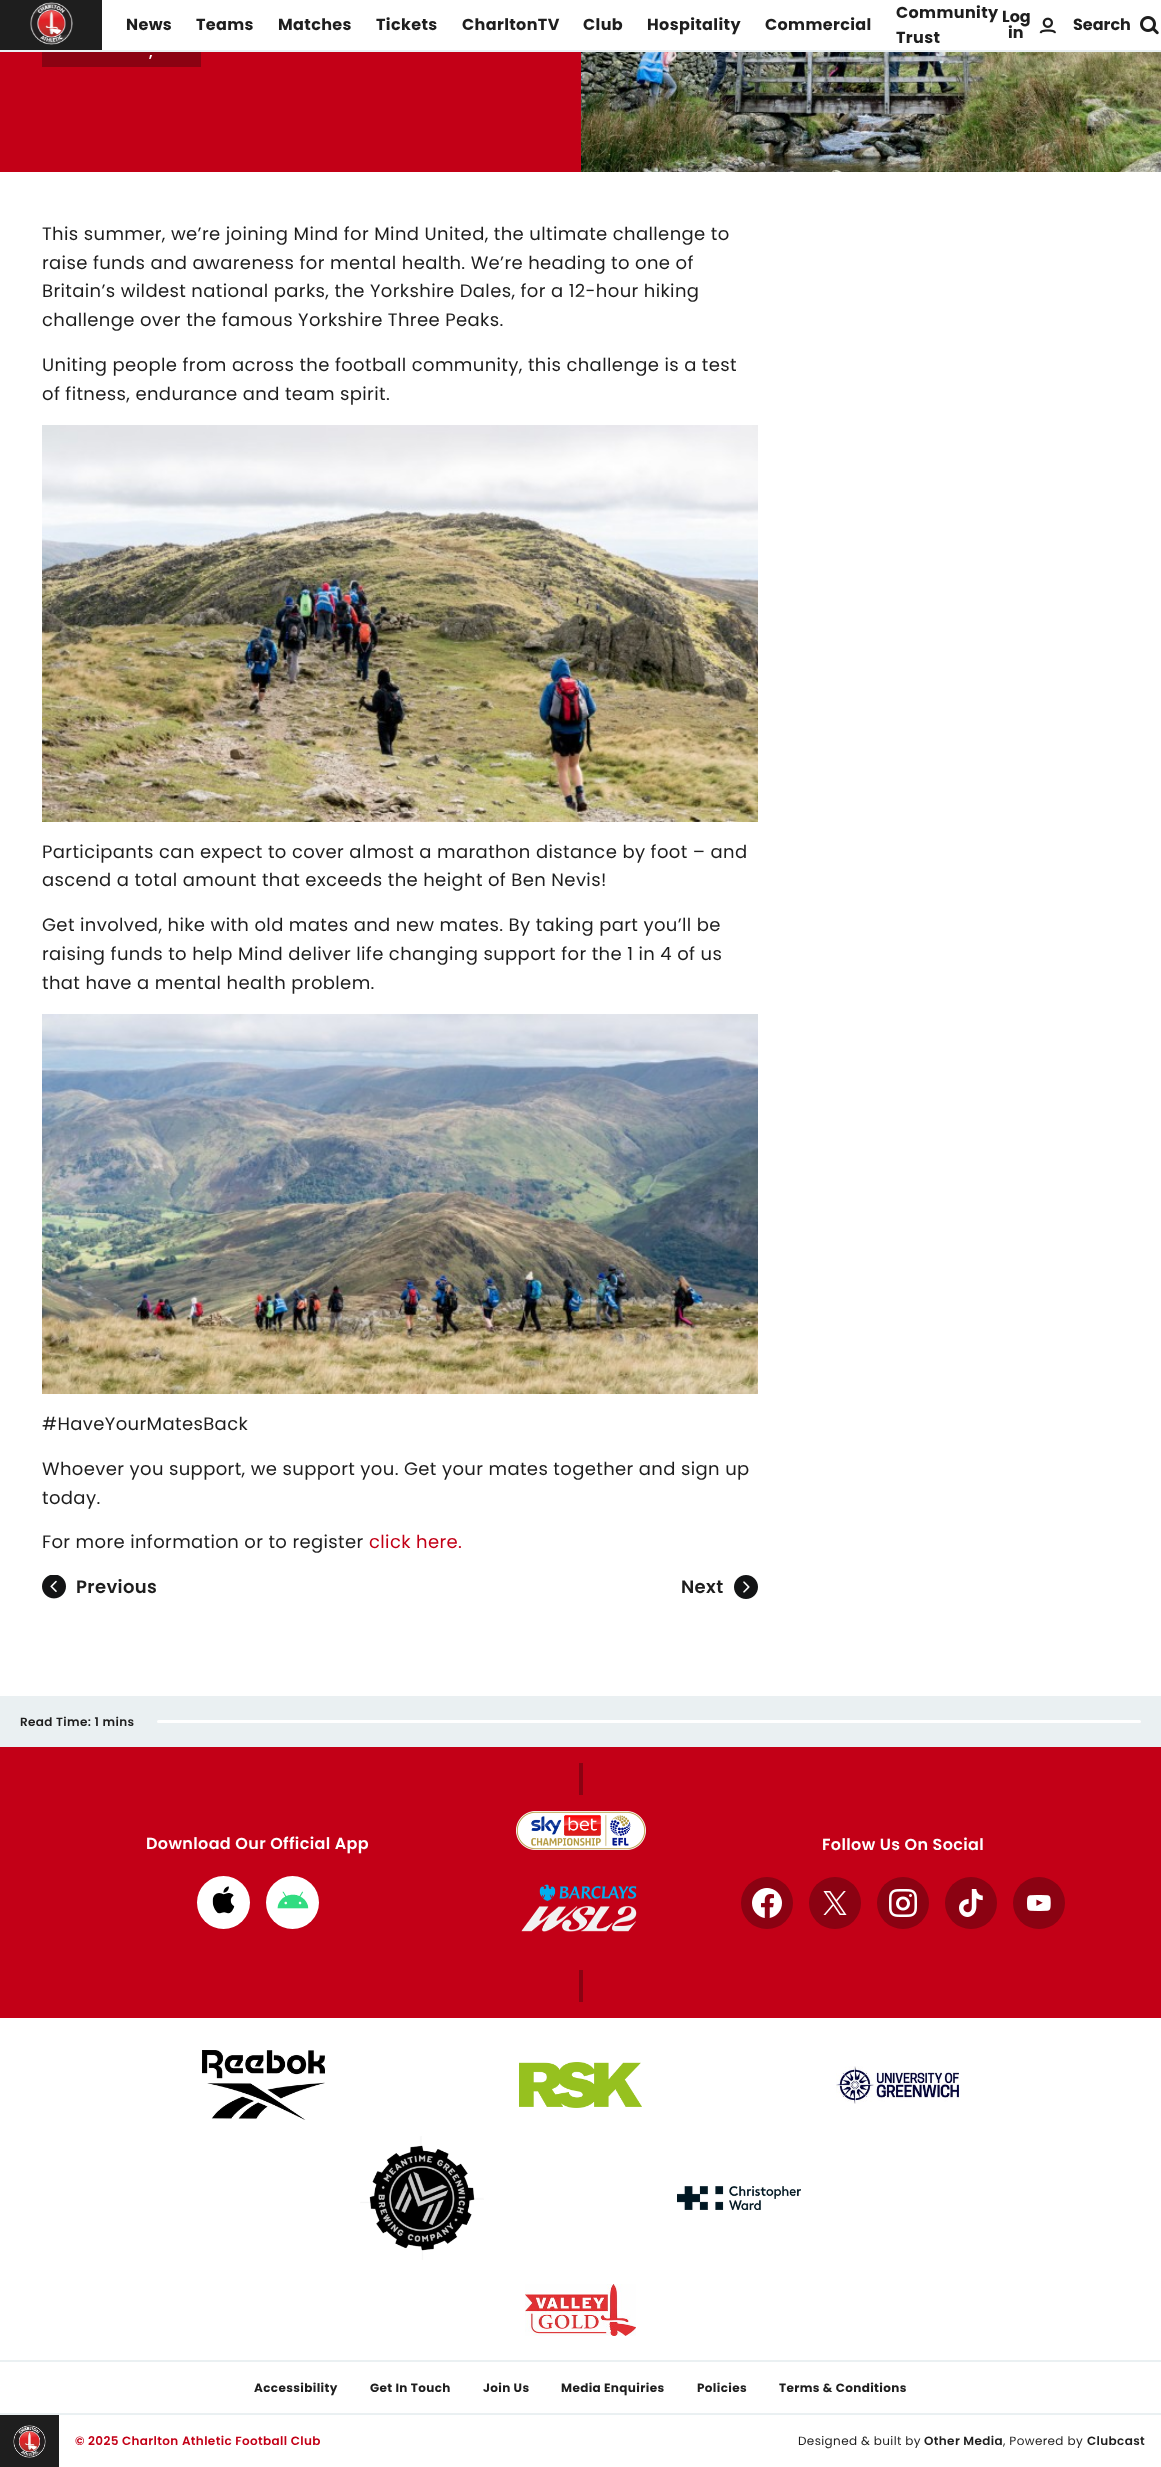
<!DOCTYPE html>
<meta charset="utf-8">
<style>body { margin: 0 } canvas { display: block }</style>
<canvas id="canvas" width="1161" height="2467"></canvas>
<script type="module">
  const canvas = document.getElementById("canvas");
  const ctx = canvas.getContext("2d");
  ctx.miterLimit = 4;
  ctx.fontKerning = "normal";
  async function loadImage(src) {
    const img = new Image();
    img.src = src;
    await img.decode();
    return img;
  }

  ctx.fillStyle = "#ffffff";
  ctx.fillRect(0, 0, 1161, 2467);
  ctx.fillStyle = "#eaf0f2";
  ctx.fillRect(0, 50, 1161, 2);
  ctx.fillStyle = "#1e1e1e";
  ctx.fillRect(0, 0, 102, 50);
  ctx.drawImage(await loadImage("img1.png"), 30, 2, 43, 43);
  ctx.letterSpacing = "0.37px";
  ctx.font = "bold 16px Poppins";
  ctx.fillText("News", 126, 30);
  ctx.fillText("Teams", 196, 30);
  ctx.fillText("Matches", 278, 30);
  ctx.fillText("Tickets", 376, 30);
  ctx.fillText("CharltonTV", 462, 30);
  ctx.fillText("Club", 583, 30);
  ctx.fillText("Hospitality", 647, 30);
  ctx.fillText("Commercial", 765, 30);
  ctx.fillText("Community", 896, 18);
  ctx.fillText("Trust", 896, 43);
  ctx.letterSpacing = "0px";
  ctx.fillText("Log", 1002, 22);
  ctx.fillText("in", 1008, 38);
  ctx.drawImage(await loadImage("img2.png"), 1039, 17, 17, 17);
  ctx.fillText("Search", 1073, 30);
  ctx.drawImage(await loadImage("img3.png"), 1140, 16, 19, 19);
  ctx.fillStyle = "#c30017";
  ctx.fillRect(0, 52, 581, 120);
  ctx.fillStyle = "#8b0212";
  ctx.fillRect(42, 52, 159, 15);
  ctx.letterSpacing = "0.37px";
  ctx.font = "600 14px Poppins";
  ctx.fillStyle = "#ffffff";
  ctx.fillText(",", 149, 57);
  ctx.drawImage(await loadImage("img4.png"), 581, 52, 580, 120);
  ctx.font = "18px Poppins";
  ctx.fillStyle = "#1e1e1e";
  ctx.fillText("This summer, we’re joining Mind for Mind United, the ultimate challenge to", 42, 240);
  ctx.fillText("raise funds and awareness for mental health. We’re heading to one of", 42, 269);
  ctx.fillText("Britain’s wildest national parks, the Yorkshire Dales, for a 12-hour hiking", 42, 297);
  ctx.fillText("challenge over the famous Yorkshire Three Peaks.", 42, 326);
  ctx.fillText("Uniting people from across the football community, this challenge is a test", 42, 371);
  ctx.fillText("of fitness, endurance and team spirit.", 42, 400);
  ctx.drawImage(await loadImage("img5.png"), 42, 425, 716, 397);
  ctx.fillText("Participants can expect to cover almost a marathon distance by foot – and", 42, 858);
  ctx.fillText("ascend a total amount that exceeds the height of Ben Nevis!", 42, 886);
  ctx.fillText("Get involved, hike with old mates and new mates. By taking part you’ll be", 42, 931);
  ctx.fillText("raising funds to help Mind deliver life changing support for the 1 in 4 of us", 42, 960);
  ctx.fillText("that have a mental health problem.", 42, 989);
  ctx.drawImage(await loadImage("img6.png"), 42, 1014, 716, 380);
  ctx.fillText("#HaveYourMatesBack", 42, 1430);
  ctx.fillText("Whoever you support, we support you. Get your mates together and sign up", 42, 1475);
  ctx.fillText("today.", 42, 1504);
  ctx.fillText("For more information or to register", 42, 1548);
  ctx.fillStyle = "#c30017";
  ctx.fillText("click here.", 369, 1548);
  ctx.drawImage(await loadImage("img7.png"), 42, 1575, 24, 24);
  ctx.font = "600 18px Poppins";
  ctx.fillStyle = "#1e1e1e";
  ctx.fillText("Previous", 76, 1593);
  ctx.fillText("Next", 681, 1593);
  ctx.drawImage(await loadImage("img8.png"), 734, 1575, 24, 24);
  ctx.fillStyle = "#eaf0f2";
  ctx.fillRect(0, 1696, 1161, 51);
  ctx.font = "600 12px Poppins";
  ctx.fillStyle = "#1e1e1e";
  ctx.fillText("Read Time: 1 mins", 20, 1726);
  ctx.fillStyle = "#ffffff";
  ctx.beginPath();
  ctx.roundRect(157, 1720, 984, 3, 1.5);
  ctx.fill();
  ctx.fillStyle = "#c30017";
  ctx.fillRect(0, 1747, 1161, 271);
  ctx.font = "600 16px Poppins";
  ctx.fillStyle = "#ffffff";
  ctx.fillText("Download Our Official App", 146, 1849);
  ctx.beginPath();
  ctx.arc(223.5, 1902.5, 26.5, 0, Math.PI * 2);
  ctx.fill();
  ctx.drawImage(await loadImage("img9.png"), 212, 1886, 23, 28);
  ctx.beginPath();
  ctx.arc(292.5, 1902.5, 26.5, 0, Math.PI * 2);
  ctx.fill();
  ctx.drawImage(await loadImage("img10.png"), 277, 1891, 32, 18);
  ctx.fillStyle = "#8b0212";
  ctx.fillRect(579, 1763, 4, 239);
  ctx.fillStyle = "#c30017";
  ctx.fillRect(579, 1795, 4, 175);
  ctx.drawImage(await loadImage("img11.png"), 516, 1811, 130, 39);
  ctx.drawImage(await loadImage("img12.png"), 521, 1884, 116, 48);
  ctx.fillStyle = "#ffffff";
  ctx.fillText("Follow Us On Social", 822, 1850);
  ctx.fillStyle = "#8b0212";
  ctx.beginPath();
  ctx.arc(767, 1903, 26, 0, Math.PI * 2);
  ctx.fill();
  ctx.drawImage(await loadImage("img13.png"), 752, 1888, 30, 30);
  ctx.beginPath();
  ctx.arc(835, 1903, 26, 0, Math.PI * 2);
  ctx.fill();
  ctx.drawImage(await loadImage("img14.png"), 823, 1891, 24, 24);
  ctx.beginPath();
  ctx.arc(903, 1903, 26, 0, Math.PI * 2);
  ctx.fill();
  ctx.drawImage(await loadImage("img15.png"), 889, 1889, 28, 28);
  ctx.beginPath();
  ctx.arc(971, 1903, 26, 0, Math.PI * 2);
  ctx.fill();
  ctx.drawImage(await loadImage("img16.png"), 959, 1889, 24, 28);
  ctx.beginPath();
  ctx.arc(1039, 1903, 26, 0, Math.PI * 2);
  ctx.fill();
  ctx.drawImage(await loadImage("img17.png"), 1027, 1895, 24, 16);
  ctx.drawImage(await loadImage("img18.png"), 202, 2050, 123, 70);
  ctx.drawImage(await loadImage("img19.png"), 519, 2062, 123, 46);
  ctx.drawImage(await loadImage("img20.png"), 836, 2066, 123, 38);
  ctx.drawImage(await loadImage("img21.png"), 360, 2136, 124, 124);
  ctx.drawImage(await loadImage("img22.png"), 677, 2186, 124, 24);
  ctx.drawImage(await loadImage("img23.png"), 525, 2284, 111, 52);
  ctx.fillStyle = "#eaf0f2";
  ctx.fillRect(0, 2360, 1161, 2);
  ctx.fillRect(0, 2413, 1161, 2);
  ctx.font = "bold 12px Poppins";
  ctx.fillStyle = "#1e1e1e";
  ctx.fillText("Accessibility", 254, 2392);
  ctx.fillText("Get In Touch", 370, 2392);
  ctx.fillText("Join Us", 483, 2392);
  ctx.fillText("Media Enquiries", 561, 2392);
  ctx.fillText("Policies", 697, 2392);
  ctx.fillText("Terms & Conditions", 779, 2392);
  ctx.fillRect(0, 2415, 59, 52);
  ctx.drawImage(await loadImage("img24.png"), 13, 2425, 33, 33);
  ctx.font = "600 12px Poppins";
  ctx.fillStyle = "#c30017";
  ctx.fillText("© 2025 Charlton Athletic Football Club", 75, 2445);
  ctx.font = "12px Poppins";
  ctx.fillStyle = "#1e1e1e";
  ctx.fillText("Designed & built by", 798, 2445);
  ctx.font = "600 12px Poppins";
  ctx.fillText("Other Media", 924, 2445);
  ctx.font = "12px Poppins";
  ctx.fillText(", Powered by", 1003, 2445);
  ctx.font = "600 12px Poppins";
  ctx.fillText("Clubcast", 1087, 2445);
</script>
